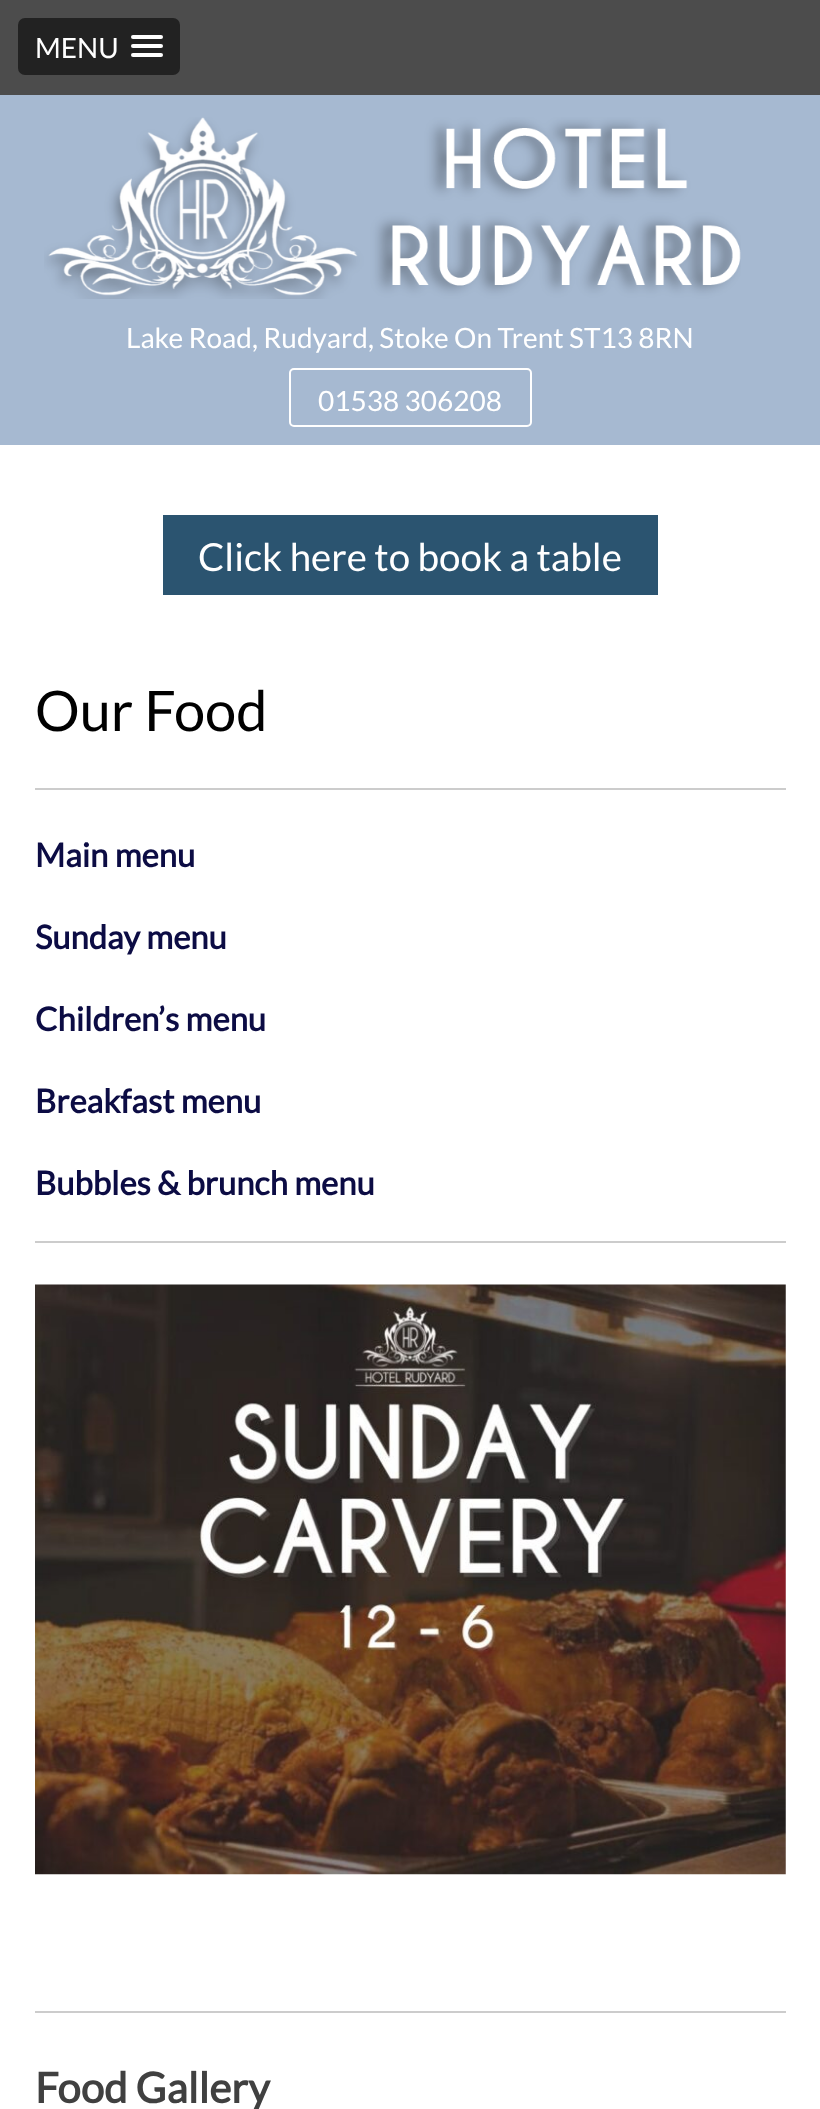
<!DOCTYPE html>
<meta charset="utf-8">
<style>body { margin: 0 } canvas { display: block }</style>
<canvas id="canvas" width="820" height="2109"></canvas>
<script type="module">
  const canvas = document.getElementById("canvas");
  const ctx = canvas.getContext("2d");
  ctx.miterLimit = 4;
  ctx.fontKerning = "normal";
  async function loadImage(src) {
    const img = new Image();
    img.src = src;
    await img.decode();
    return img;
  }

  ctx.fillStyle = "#ffffff";
  ctx.fillRect(0, 0, 820, 2109);
  ctx.fillStyle = "#4c4c4c";
  ctx.fillRect(0, 0, 820, 95);
  ctx.fillStyle = "#222222";
  ctx.beginPath();
  ctx.roundRect(18, 18, 162, 57, 7);
  ctx.fill();
  ctx.font = "28px Lato";
  ctx.fillStyle = "#ffffff";
  ctx.fillText("MENU", 35, 58);
  ctx.beginPath();
  ctx.roundRect(131, 35, 32, 4, 2);
  ctx.fill();
  ctx.beginPath();
  ctx.roundRect(131, 44, 32, 4, 2);
  ctx.fill();
  ctx.beginPath();
  ctx.roundRect(131, 53, 32, 4, 2);
  ctx.fill();
  ctx.fillStyle = "#a6b9d1";
  ctx.fillRect(0, 95, 820, 350);
  ctx.drawImage(await loadImage("img1.png"), 44, 117, 697, 182);
  ctx.fillStyle = "#ffffff";
  ctx.fillText("Lake Road, Rudyard, Stoke On Trent ST13 8RN", 126, 348);
  ctx.beginPath();
  ctx.roundRect(290, 369, 241, 57, 4);
  ctx.strokeStyle = "#ffffff";
  ctx.lineWidth = 2;
  ctx.stroke();
  ctx.fillText("01538 306208", 318, 411);
  ctx.fillStyle = "#2b5470";
  ctx.fillRect(163, 515, 495, 80);
  ctx.font = "38.5px Lato";
  ctx.fillStyle = "#ffffff";
  ctx.fillText("Click here to book a table", 198, 571);
  ctx.font = "56px Lato";
  ctx.fillStyle = "#000000";
  ctx.fillText("Our Food", 35, 731);
  ctx.fillStyle = "#cccccc";
  ctx.fillRect(35, 788, 751, 2);
  ctx.font = "bold 32.75px Lato";
  ctx.fillStyle = "#0c0c44";
  ctx.fillText("Main menu", 35, 867);
  ctx.fillText("Sunday menu", 35, 949);
  ctx.fillText("Children’s menu", 35, 1031);
  ctx.fillText("Breakfast menu", 35, 1113);
  ctx.fillText("Bubbles & brunch menu", 35, 1195);
  ctx.fillStyle = "#cccccc";
  ctx.fillRect(35, 1241, 751, 2);
  ctx.drawImage(await loadImage("img2.png"), 35, 1284, 751, 591);
  ctx.fillRect(35, 2011, 751, 2);
  ctx.font = "bold 42px Lato";
  ctx.fillStyle = "#404040";
  ctx.fillText("Food Gallery", 35, 2103);
</script>
